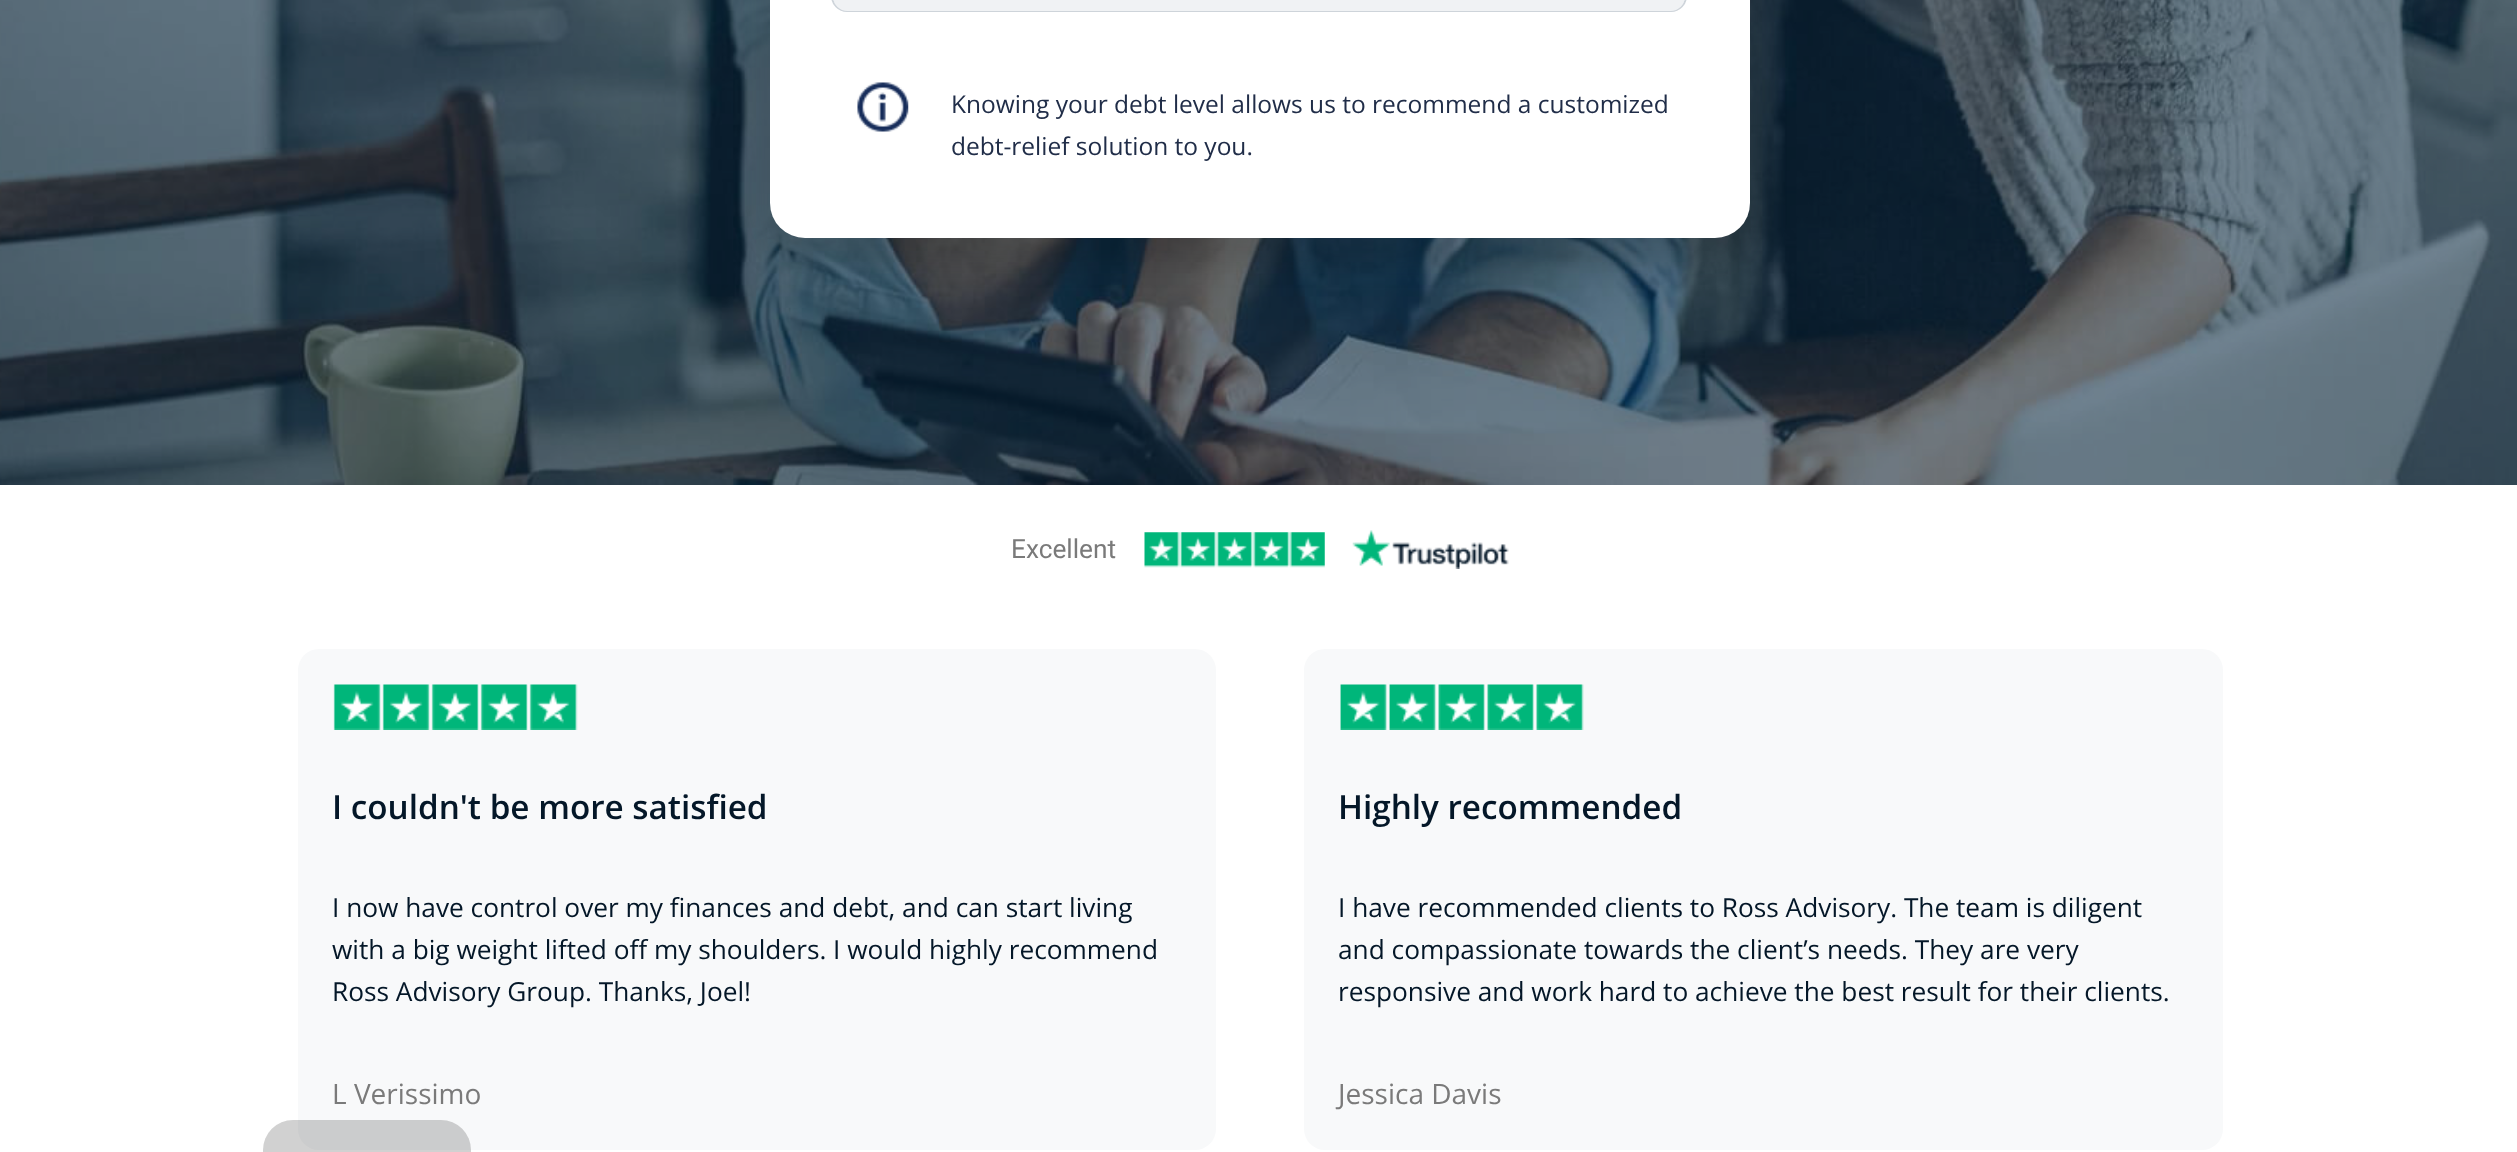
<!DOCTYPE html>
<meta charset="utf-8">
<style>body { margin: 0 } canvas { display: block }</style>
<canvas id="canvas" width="2517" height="1152"></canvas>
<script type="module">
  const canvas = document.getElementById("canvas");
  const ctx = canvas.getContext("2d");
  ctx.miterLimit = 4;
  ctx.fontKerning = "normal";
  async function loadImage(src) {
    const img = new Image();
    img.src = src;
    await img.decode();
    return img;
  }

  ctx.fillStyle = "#ffffff";
  ctx.fillRect(0, 0, 2517, 1152);
  ctx.drawImage(await loadImage("img1.png"), 0, 0, 2517, 485);
  ctx.fillStyle = "rgba(0, 0, 0, 0.12)";
  ctx.filter = "blur(13px)";
  ctx.beginPath();
  ctx.roundRect(758, -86, 1004, 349, 47);
  ctx.fill();
  ctx.filter = "none";
  ctx.fillStyle = "#ffffff";
  ctx.beginPath();
  ctx.roundRect(770, -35, 980, 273, 35);
  ctx.fill();
  ctx.fillStyle = "#f0f2f4";
  ctx.beginPath();
  ctx.roundRect(832, -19, 854, 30, 17);
  ctx.fill();
  ctx.strokeStyle = "#ced4da";
  ctx.lineWidth = 2;
  ctx.stroke();
  ctx.beginPath();
  ctx.roundRect(833, -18, 852, 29, 18);
  ctx.fill();
  ctx.drawImage(await loadImage("img2.png"), 857, 82, 52, 50);
  ctx.font = "24.5px Open Sans";
  ctx.fillStyle = "#202d48";
  ctx.fillText("Knowing your debt level allows us to recommend a customized", 951, 113);
  ctx.fillText("debt-relief solution to you.", 951, 155);
  ctx.font = "26.25px Roboto";
  ctx.fillStyle = "#7a7a7a";
  ctx.fillText("Excellent", 1011, 558);
  ctx.drawImage(await loadImage("img3.png"), 1144, 532, 181, 36);
  ctx.drawImage(await loadImage("img4.png"), 1352, 530, 157, 39);
  ctx.fillStyle = "#f8f9fa";
  ctx.beginPath();
  ctx.roundRect(298, 649, 918, 501, 21);
  ctx.fill();
  ctx.drawImage(await loadImage("img5.png"), 333, 684, 245, 46);
  ctx.font = "600 33.25px Open Sans";
  ctx.fillStyle = "#041728";
  ctx.fillText("I couldn't be more satisfied", 332, 819);
  ctx.font = "26.25px Open Sans";
  ctx.fillText("I now have control over my finances and debt, and can start living", 332, 917);
  ctx.fillText("with a big weight lifted off my shoulders. I would highly recommend", 332, 959);
  ctx.fillText("Ross Advisory Group. Thanks, Joel!", 332, 1001);
  ctx.font = "28px Open Sans";
  ctx.fillStyle = "#7a7a7a";
  ctx.fillText("L Verissimo", 332, 1104);
  ctx.fillStyle = "#f8f9fa";
  ctx.beginPath();
  ctx.roundRect(1304, 649, 919, 501, 21);
  ctx.fill();
  ctx.drawImage(await loadImage("img6.png"), 1340, 684, 244, 46);
  ctx.font = "600 33.25px Open Sans";
  ctx.fillStyle = "#041728";
  ctx.fillText("Highly recommended", 1338, 819);
  ctx.font = "26.25px Open Sans";
  ctx.fillText("I have recommended clients to Ross Advisory. The team is diligent", 1338, 917);
  ctx.fillText("and compassionate towards the client’s needs. They are very", 1338, 959);
  ctx.fillText("responsive and work hard to achieve the best result for their clients.", 1338, 1001);
  ctx.font = "28px Open Sans";
  ctx.fillStyle = "#7a7a7a";
  ctx.fillText("Jessica Davis", 1338, 1104);
  ctx.fillStyle = "rgba(0, 0, 0, 0.18)";
  ctx.beginPath();
  ctx.roundRect(263, 1120, 208, 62, 30);
  ctx.fill();
</script>
